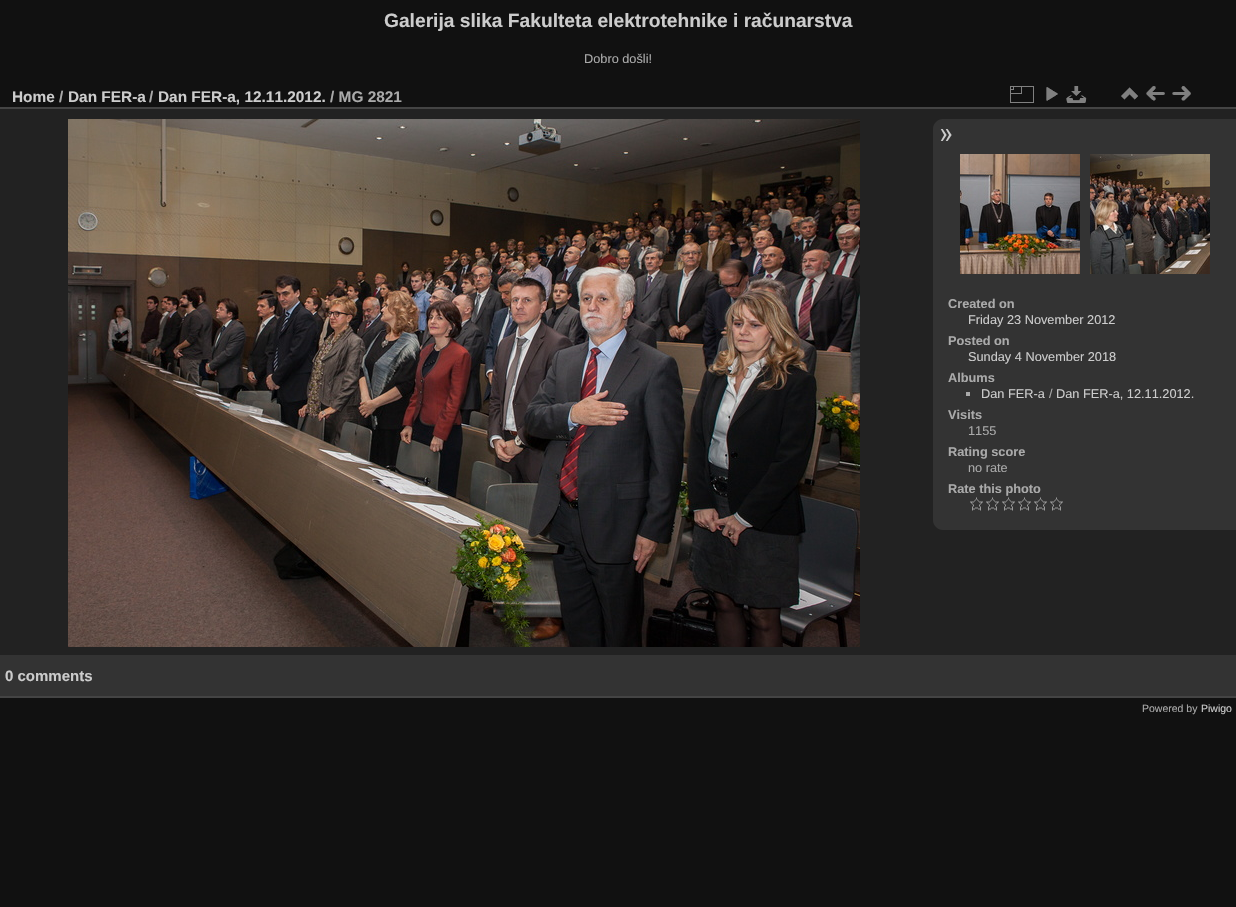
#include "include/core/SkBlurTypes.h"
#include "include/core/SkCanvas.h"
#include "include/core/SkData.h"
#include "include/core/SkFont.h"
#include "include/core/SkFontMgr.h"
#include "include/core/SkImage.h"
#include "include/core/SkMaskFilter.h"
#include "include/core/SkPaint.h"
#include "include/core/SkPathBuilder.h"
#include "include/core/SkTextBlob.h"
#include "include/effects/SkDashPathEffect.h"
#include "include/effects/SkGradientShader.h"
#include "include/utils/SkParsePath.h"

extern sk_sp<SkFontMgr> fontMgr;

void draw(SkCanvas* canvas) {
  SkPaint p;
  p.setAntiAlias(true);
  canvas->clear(SkColorSetRGB(17, 17, 17));
  p.setColor(SkColorSetRGB(34, 34, 34));
  canvas->drawRect(SkRect::MakeLTRB(0, 109, 1236, 655), p);
  p.setColor(SkColorSetRGB(68, 68, 68));
  canvas->drawRect(SkRect::MakeLTRB(0, 696, 1236, 698), p);
  canvas->drawRect(SkRect::MakeLTRB(0, 107, 1236, 109), p);
  canvas->drawImageRect(SkImages::DeferredFromEncodedData(SkData::MakeFromFileName("images/1.png")), SkRect::MakeLTRB(1010, 86, 1034, 103), SkSamplingOptions());
  canvas->drawImageRect(SkImages::DeferredFromEncodedData(SkData::MakeFromFileName("images/2.png")), SkRect::MakeLTRB(1046, 87, 1058, 101), SkSamplingOptions());
  canvas->drawImageRect(SkImages::DeferredFromEncodedData(SkData::MakeFromFileName("images/3.png")), SkRect::MakeLTRB(1066, 86, 1087, 103), SkSamplingOptions());
  canvas->drawImageRect(SkImages::DeferredFromEncodedData(SkData::MakeFromFileName("images/4.png")), SkRect::MakeLTRB(1121, 87, 1138, 100), SkSamplingOptions());
  canvas->drawImageRect(SkImages::DeferredFromEncodedData(SkData::MakeFromFileName("images/5.png")), SkRect::MakeLTRB(1146, 86, 1165, 101), SkSamplingOptions());
  canvas->drawImageRect(SkImages::DeferredFromEncodedData(SkData::MakeFromFileName("images/6.png")), SkRect::MakeLTRB(1172, 86, 1191, 101), SkSamplingOptions());
  canvas->drawImageRect(SkImages::DeferredFromEncodedData(SkData::MakeFromFileName("images/7.png")), SkRect::MakeLTRB(68, 119, 860, 647), SkSamplingOptions());
  p.setColor(SkColorSetRGB(51, 51, 51));
  canvas->drawPath(SkPathBuilder().moveTo(943, 119).lineTo(1236, 119).lineTo(1236, 530).lineTo(943, 530).cubicTo(937.5f, 530, 933, 525.5f, 933, 520).lineTo(933, 129).cubicTo(933, 123.5f, 937.5f, 119, 943, 119).close().detach(), p);
  canvas->drawImageRect(SkImages::DeferredFromEncodedData(SkData::MakeFromFileName("images/8.png")), SkRect::MakeLTRB(940, 129, 952, 141), SkSamplingOptions());
  canvas->drawImageRect(SkImages::DeferredFromEncodedData(SkData::MakeFromFileName("images/9.png")), SkRect::MakeLTRB(960, 154, 1080, 274), SkSamplingOptions());
  canvas->drawImageRect(SkImages::DeferredFromEncodedData(SkData::MakeFromFileName("images/10.png")), SkRect::MakeLTRB(1090, 154, 1210, 274), SkSamplingOptions());
  p.setColor(SkColorSetRGB(170, 170, 170));
  canvas->drawRect(SkRect::MakeLTRB(966, 392, 970, 396), p);
  canvas->drawImageRect(SkImages::DeferredFromEncodedData(SkData::MakeFromFileName("images/11.png")), SkRect::MakeLTRB(970, 497, 983, 511), SkSamplingOptions());
  canvas->drawImageRect(SkImages::DeferredFromEncodedData(SkData::MakeFromFileName("images/11.png")), SkRect::MakeLTRB(986, 497, 999, 511), SkSamplingOptions());
  canvas->drawImageRect(SkImages::DeferredFromEncodedData(SkData::MakeFromFileName("images/11.png")), SkRect::MakeLTRB(1002, 497, 1015, 511), SkSamplingOptions());
  canvas->drawImageRect(SkImages::DeferredFromEncodedData(SkData::MakeFromFileName("images/11.png")), SkRect::MakeLTRB(1018, 497, 1031, 511), SkSamplingOptions());
  canvas->drawImageRect(SkImages::DeferredFromEncodedData(SkData::MakeFromFileName("images/11.png")), SkRect::MakeLTRB(1034, 497, 1047, 511), SkSamplingOptions());
  canvas->drawImageRect(SkImages::DeferredFromEncodedData(SkData::MakeFromFileName("images/11.png")), SkRect::MakeLTRB(1050, 497, 1063, 511), SkSamplingOptions());
  p.setColor(SkColorSetRGB(51, 51, 51));
  canvas->drawRect(SkRect::MakeLTRB(0, 655, 1236, 696), p);
  SkFont font1(fontMgr->matchFamilyStyle("Liberation Sans", SkFontStyle::Bold()), 19.2f);
  font1.setSubpixel(true);
  p.setColor(SkColorSetRGB(204, 204, 204));
  canvas->drawString("Galerija slika Fakulteta elektrotehnike i računarstva", 384, 27, font1, p);
  SkFont font2(fontMgr->matchFamilyStyle("Liberation Sans", SkFontStyle::Normal()), 12.75f);
  font2.setSubpixel(true);
  p.setColor(SkColorSetRGB(170, 170, 170));
  canvas->drawString("Dobro došli!", 584, 63, font2, p);
  SkFont font3(fontMgr->matchFamilyStyle("Liberation Sans", SkFontStyle::Bold()), 15.4f);
  font3.setSubpixel(true);
  p.setColor(SkColorSetRGB(204, 204, 204));
  canvas->drawString("Home", 12, 102, font3, p);
  p.setColor(SkColorSetRGB(170, 170, 170));
  canvas->drawString("/", 59, 102, font3, p);
  p.setColor(SkColorSetRGB(204, 204, 204));
  canvas->drawString("Dan FER-a", 68, 102, font3, p);
  p.setColor(SkColorSetRGB(170, 170, 170));
  canvas->drawString("/", 149, 102, font3, p);
  p.setColor(SkColorSetRGB(204, 204, 204));
  canvas->drawString("Dan FER-a, 12.11.2012.", 158, 102, font3, p);
  p.setColor(SkColorSetRGB(170, 170, 170));
  canvas->drawString("/ MG 2821", 330, 102, font3, p);
  SkFont font4(fontMgr->matchFamilyStyle("Liberation Sans", SkFontStyle::Bold()), 12.75f);
  font4.setSubpixel(true);
  canvas->drawString("Created on", 948, 308, font4, p);
  p.setColor(SkColorSetRGB(204, 204, 204));
  canvas->drawString("Friday 23 November 2012", 968, 324, font2, p);
  p.setColor(SkColorSetRGB(170, 170, 170));
  canvas->drawString("Posted on", 948, 345, font4, p);
  p.setColor(SkColorSetRGB(204, 204, 204));
  canvas->drawString("Sunday 4 November 2018", 968, 361, font2, p);
  p.setColor(SkColorSetRGB(170, 170, 170));
  canvas->drawString("Albums", 948, 382, font4, p);
  p.setColor(SkColorSetRGB(204, 204, 204));
  canvas->drawString("Dan FER-a", 981, 398, font2, p);
  p.setColor(SkColorSetRGB(170, 170, 170));
  canvas->drawString("/", 1049, 398, font2, p);
  p.setColor(SkColorSetRGB(204, 204, 204));
  canvas->drawString("Dan FER-a, 12.11.2012.", 1056, 398, font2, p);
  p.setColor(SkColorSetRGB(170, 170, 170));
  canvas->drawString("Visits", 948, 419, font4, p);
  canvas->drawString("1155", 968, 435, font2, p);
  canvas->drawString("Rating score", 948, 456, font4, p);
  canvas->drawString("no rate", 968, 472, font2, p);
  canvas->drawString("Rate this photo", 948, 493, font4, p);
  SkFont font5(fontMgr->matchFamilyStyle("Liberation Sans", SkFontStyle::Bold()), 15);
  font5.setSubpixel(true);
  p.setColor(SkColorSetRGB(204, 204, 204));
  canvas->drawString("0 comments", 5, 681, font5, p);
  SkFont font6(fontMgr->matchFamilyStyle("Liberation Sans", SkFontStyle::Normal()), 10.5f);
  font6.setSubpixel(true);
  p.setColor(SkColorSetRGB(170, 170, 170));
  canvas->drawString("Powered by", 1142, 712, font6, p);
  p.setColor(SkColorSetRGB(204, 204, 204));
  canvas->drawString("Piwigo", 1201, 712, font6, p);
}
